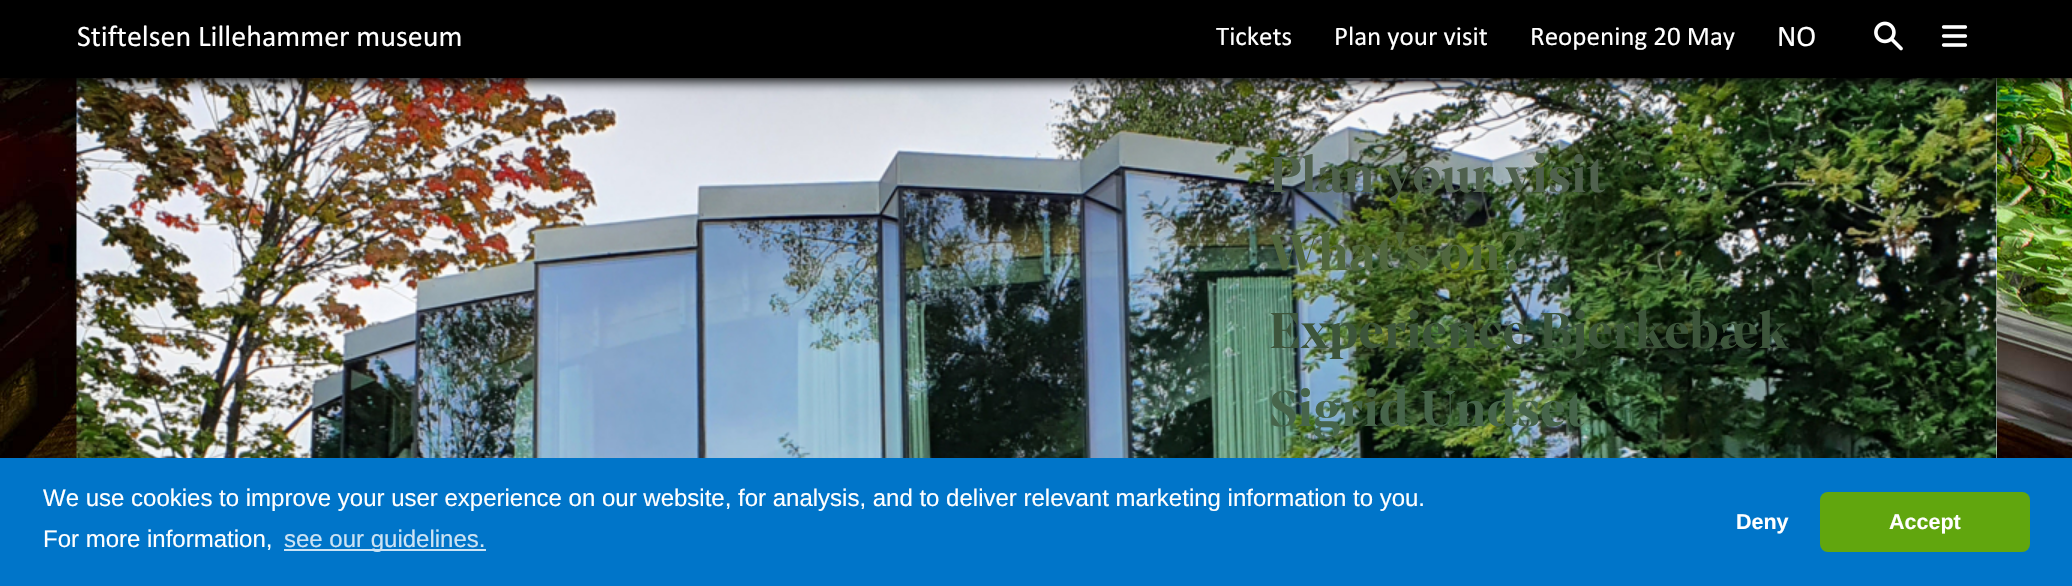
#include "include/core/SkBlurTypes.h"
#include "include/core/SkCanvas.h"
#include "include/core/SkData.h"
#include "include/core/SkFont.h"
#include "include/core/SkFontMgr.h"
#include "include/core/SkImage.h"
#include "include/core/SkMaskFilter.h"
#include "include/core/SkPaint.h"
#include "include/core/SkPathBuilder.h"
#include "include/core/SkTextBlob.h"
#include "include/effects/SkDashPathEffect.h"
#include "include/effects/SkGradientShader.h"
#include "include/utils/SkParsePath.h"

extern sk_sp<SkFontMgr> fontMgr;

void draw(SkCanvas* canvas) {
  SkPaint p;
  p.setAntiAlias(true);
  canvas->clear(SK_ColorWHITE);
  canvas->drawImageRect(SkImages::DeferredFromEncodedData(SkData::MakeFromFileName("images/3.png")), SkRect::MakeLTRB(0, 78, 2072, 458), SkSamplingOptions());
  p.setColor(SK_ColorWHITE);
  canvas->drawRect(SkRect::MakeLTRB(1996, 78, 1997, 458), p);
  canvas->drawImageRect(SkImages::DeferredFromEncodedData(SkData::MakeFromFileName("images/4.png")), SkRect::MakeLTRB(76, 78, 1997, 458), SkSamplingOptions());
  p.setColor(SK_ColorBLACK);
  p.setMaskFilter(SkMaskFilter::MakeBlur(kNormal_SkBlurStyle, 6));
  canvas->drawRect(SkRect::MakeLTRB(-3, -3, 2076, 81), p);
  p.setMaskFilter(nullptr);
  canvas->drawRect(SkRect::MakeLTRB(0, 0, 2072, 78), p);
  canvas->drawImageRect(SkImages::DeferredFromEncodedData(SkData::MakeFromFileName("images/1.png")), SkRect::MakeLTRB(1874, 21, 1903, 51), SkSamplingOptions());
  canvas->drawImageRect(SkImages::DeferredFromEncodedData(SkData::MakeFromFileName("images/2.png")), SkRect::MakeLTRB(1941, 25, 1968, 47), SkSamplingOptions());
  p.setColor(SkColorSetRGB(0, 117, 201));
  canvas->drawRect(SkRect::MakeLTRB(0, 458, 2072, 586), p);
  p.setColor(SkColorSetRGB(204, 227, 244));
  canvas->drawRect(SkRect::MakeLTRB(284, 549, 486, 551), p);
  p.setColor(SkColorSetRGB(97, 166, 14));
  canvas->drawRoundRect(SkRect::MakeLTRB(1820, 492, 2030, 552), 8, 8, p);
  SkFont font1(fontMgr->matchFamilyStyle("Calibri", SkFontStyle::Normal()), 30);
  font1.setSubpixel(true);
  p.setColor(SK_ColorWHITE);
  canvas->drawString("Stiftelsen Lillehammer museum", 77, 46, font1, p);
  SkFont font2(fontMgr->matchFamilyStyle("Calibri", SkFontStyle::Normal()), 27);
  font2.setSubpixel(true);
  canvas->drawString("Tickets", 1216, 45, font2, p);
  canvas->drawString("Plan your visit", 1334, 45, font2, p);
  canvas->drawString("Reopening 20 May", 1530, 45, font2, p);
  canvas->drawString("NO", 1777, 46, font1, p);
  SkFont font3(fontMgr->matchFamilyStyle("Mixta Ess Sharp", SkFontStyle::Bold()), 54);
  font3.setSubpixel(true);
  p.setColor(SkColorSetRGB(80, 97, 78));
  canvas->drawString("Plan your visit", 1269, 192, font3, p);
  p.setColor(SkColorSetRGB(81, 103, 62));
  canvas->drawString("What's on?", 1269, 270, font3, p);
  p.setColor(SkColorSetRGB(61, 85, 59));
  canvas->drawString("Experience Bjerkebæk", 1269, 348, font3, p);
  p.setColor(SkColorSetRGB(71, 101, 75));
  canvas->drawString("Sigrid Undset", 1269, 426, font3, p);
  p.setColor(SkColorSetRGB(59, 96, 65));
  canvas->drawString("+", 1614, 426, font3, p);
  SkFont font4(fontMgr->matchFamilyStyle("Liberation Sans", SkFontStyle::Normal()), 24);
  font4.setSubpixel(true);
  p.setColor(SK_ColorWHITE);
  canvas->drawString("We use cookies to improve your user experience on our website, for analysis, and to deliver relevant marketing information to you.", 43, 506, font4, p);
  canvas->drawString("For more information,", 43, 547, font4, p);
  p.setColor(SkColorSetRGB(204, 227, 244));
  canvas->drawString("see our guidelines.", 284, 547, font4, p);
  SkFont font5(fontMgr->matchFamilyStyle("Liberation Sans", SkFontStyle::Bold()), 21.5f);
  font5.setSubpixel(true);
  p.setColor(SK_ColorWHITE);
  canvas->drawString("Deny", 1736, 529, font5, p);
  canvas->drawString("Accept", 1889, 529, font5, p);
}
